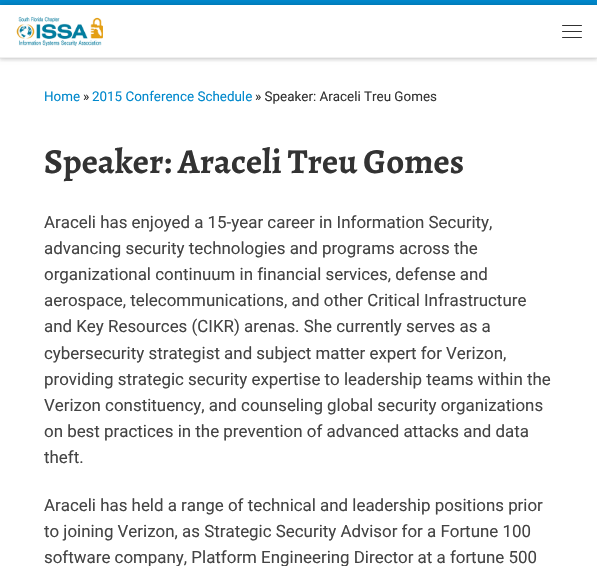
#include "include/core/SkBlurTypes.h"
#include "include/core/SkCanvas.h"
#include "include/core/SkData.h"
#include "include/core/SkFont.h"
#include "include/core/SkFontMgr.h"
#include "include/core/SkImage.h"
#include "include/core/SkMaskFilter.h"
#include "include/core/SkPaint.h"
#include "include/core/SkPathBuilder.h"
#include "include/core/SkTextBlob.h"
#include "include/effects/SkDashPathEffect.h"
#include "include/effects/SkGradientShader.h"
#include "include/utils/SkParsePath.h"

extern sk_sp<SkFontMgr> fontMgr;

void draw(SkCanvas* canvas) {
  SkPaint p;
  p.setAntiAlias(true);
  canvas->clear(SK_ColorWHITE);
  canvas->save();
  canvas->clipRect(SkRect::MakeLTRB(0, 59, 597, 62));
  p.setColor(SkColorSetARGB(20, 102, 102, 102));
  p.setMaskFilter(SkMaskFilter::MakeBlur(kNormal_SkBlurStyle, 1));
  canvas->drawRect(SkRect::MakeLTRB(0, 2, 597, 61), p);
  p.setMaskFilter(nullptr);
  canvas->restore();
  p.setColor(SkColorSetRGB(0, 136, 204));
  canvas->drawRect(SkRect::MakeLTRB(0, 0, 597, 5), p);
  p.setColor(SkColorSetRGB(239, 239, 239));
  canvas->drawRect(SkRect::MakeLTRB(0, 58, 597, 59), p);
  canvas->save();
  canvas->clipPath(SkPathBuilder(SkPathFillType::kEvenOdd).moveTo(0, 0).lineTo(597, 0).lineTo(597, 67).lineTo(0, 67).close().moveTo(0, 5).lineTo(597, 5).lineTo(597, 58).lineTo(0, 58).close().detach(), true);
  p.setColor(SkColorSetARGB(51, 0, 0, 0));
  p.setMaskFilter(SkMaskFilter::MakeBlur(kNormal_SkBlurStyle, 2.5f));
  canvas->drawRect(SkRect::MakeLTRB(0, 5, 597, 58), p);
  p.setMaskFilter(nullptr);
  canvas->restore();
  canvas->drawImageRect(SkImages::DeferredFromEncodedData(SkData::MakeFromFileName("images/1.png")), SkRect::MakeLTRB(16, 16, 103, 46), SkSamplingOptions());
  p.setColor(SkColorSetRGB(49, 49, 49));
  canvas->drawRoundRect(SkRect::MakeLTRB(562, 25, 582, 26), 0.5f, 0.5f, p);
  canvas->drawRoundRect(SkRect::MakeLTRB(562, 31, 582, 32), 0.5f, 0.5f, p);
  canvas->drawRoundRect(SkRect::MakeLTRB(562, 37, 582, 38), 0.5f, 0.5f, p);
  p.setColor(SkColorSetRGB(240, 240, 240));
  canvas->drawRect(SkRect::MakeLTRB(0, 57, 597, 58), p);
  SkFont font1(fontMgr->matchFamilyStyle("Roboto", SkFontStyle::Normal()), 13.4f);
  font1.setSubpixel(true);
  p.setColor(SkColorSetRGB(0, 136, 204));
  canvas->drawString("Home", 44, 101, font1, p);
  p.setColor(SkColorSetRGB(51, 51, 51));
  canvas->drawString("»", 83, 101, font1, p);
  p.setColor(SkColorSetRGB(0, 136, 204));
  canvas->drawString("2015 Conference Schedule", 92, 101, font1, p);
  p.setColor(SkColorSetRGB(51, 51, 51));
  canvas->drawString("» Speaker: Araceli Treu Gomes", 255, 101, font1, p);
  SkFont font2(fontMgr->matchFamilyStyle("Alegreya", SkFontStyle::Bold()), 35);
  font2.setSubpixel(true);
  canvas->drawString("Speaker: Araceli Treu Gomes", 44, 173, font2, p);
  SkFont font3(fontMgr->matchFamilyStyle("Roboto", SkFontStyle::Normal()), 16.9f);
  font3.setSubpixel(true);
  p.setColor(SkColorSetRGB(68, 68, 68));
  canvas->drawString("Araceli has enjoyed a 15-year career in Information Security,", 44, 228, font3, p);
  canvas->drawString("advancing security technologies and programs across the", 44, 254, font3, p);
  canvas->drawString("organizational continuum in financial services, defense and", 44, 280, font3, p);
  canvas->drawString("aerospace, telecommunications, and other Critical Infrastructure", 44, 306, font3, p);
  canvas->drawString("and Key Resources (CIKR) arenas. She currently serves as a", 44, 332, font3, p);
  canvas->drawString("cybersecurity strategist and subject matter expert for Verizon,", 44, 359, font3, p);
  canvas->drawString("providing strategic security expertise to leadership teams within the", 44, 385, font3, p);
  canvas->drawString("Verizon constituency, and counseling global security organizations", 44, 411, font3, p);
  canvas->drawString("on best practices in the prevention of advanced attacks and data", 44, 437, font3, p);
  canvas->drawString("theft.", 44, 463, font3, p);
  canvas->drawString("Araceli has held a range of technical and leadership positions prior", 44, 511, font3, p);
  canvas->drawString("to joining Verizon, as Strategic Security Advisor for a Fortune 100", 44, 537, font3, p);
  canvas->drawString("software company, Platform Engineering Director at a fortune 500", 44, 563, font3, p);
}
